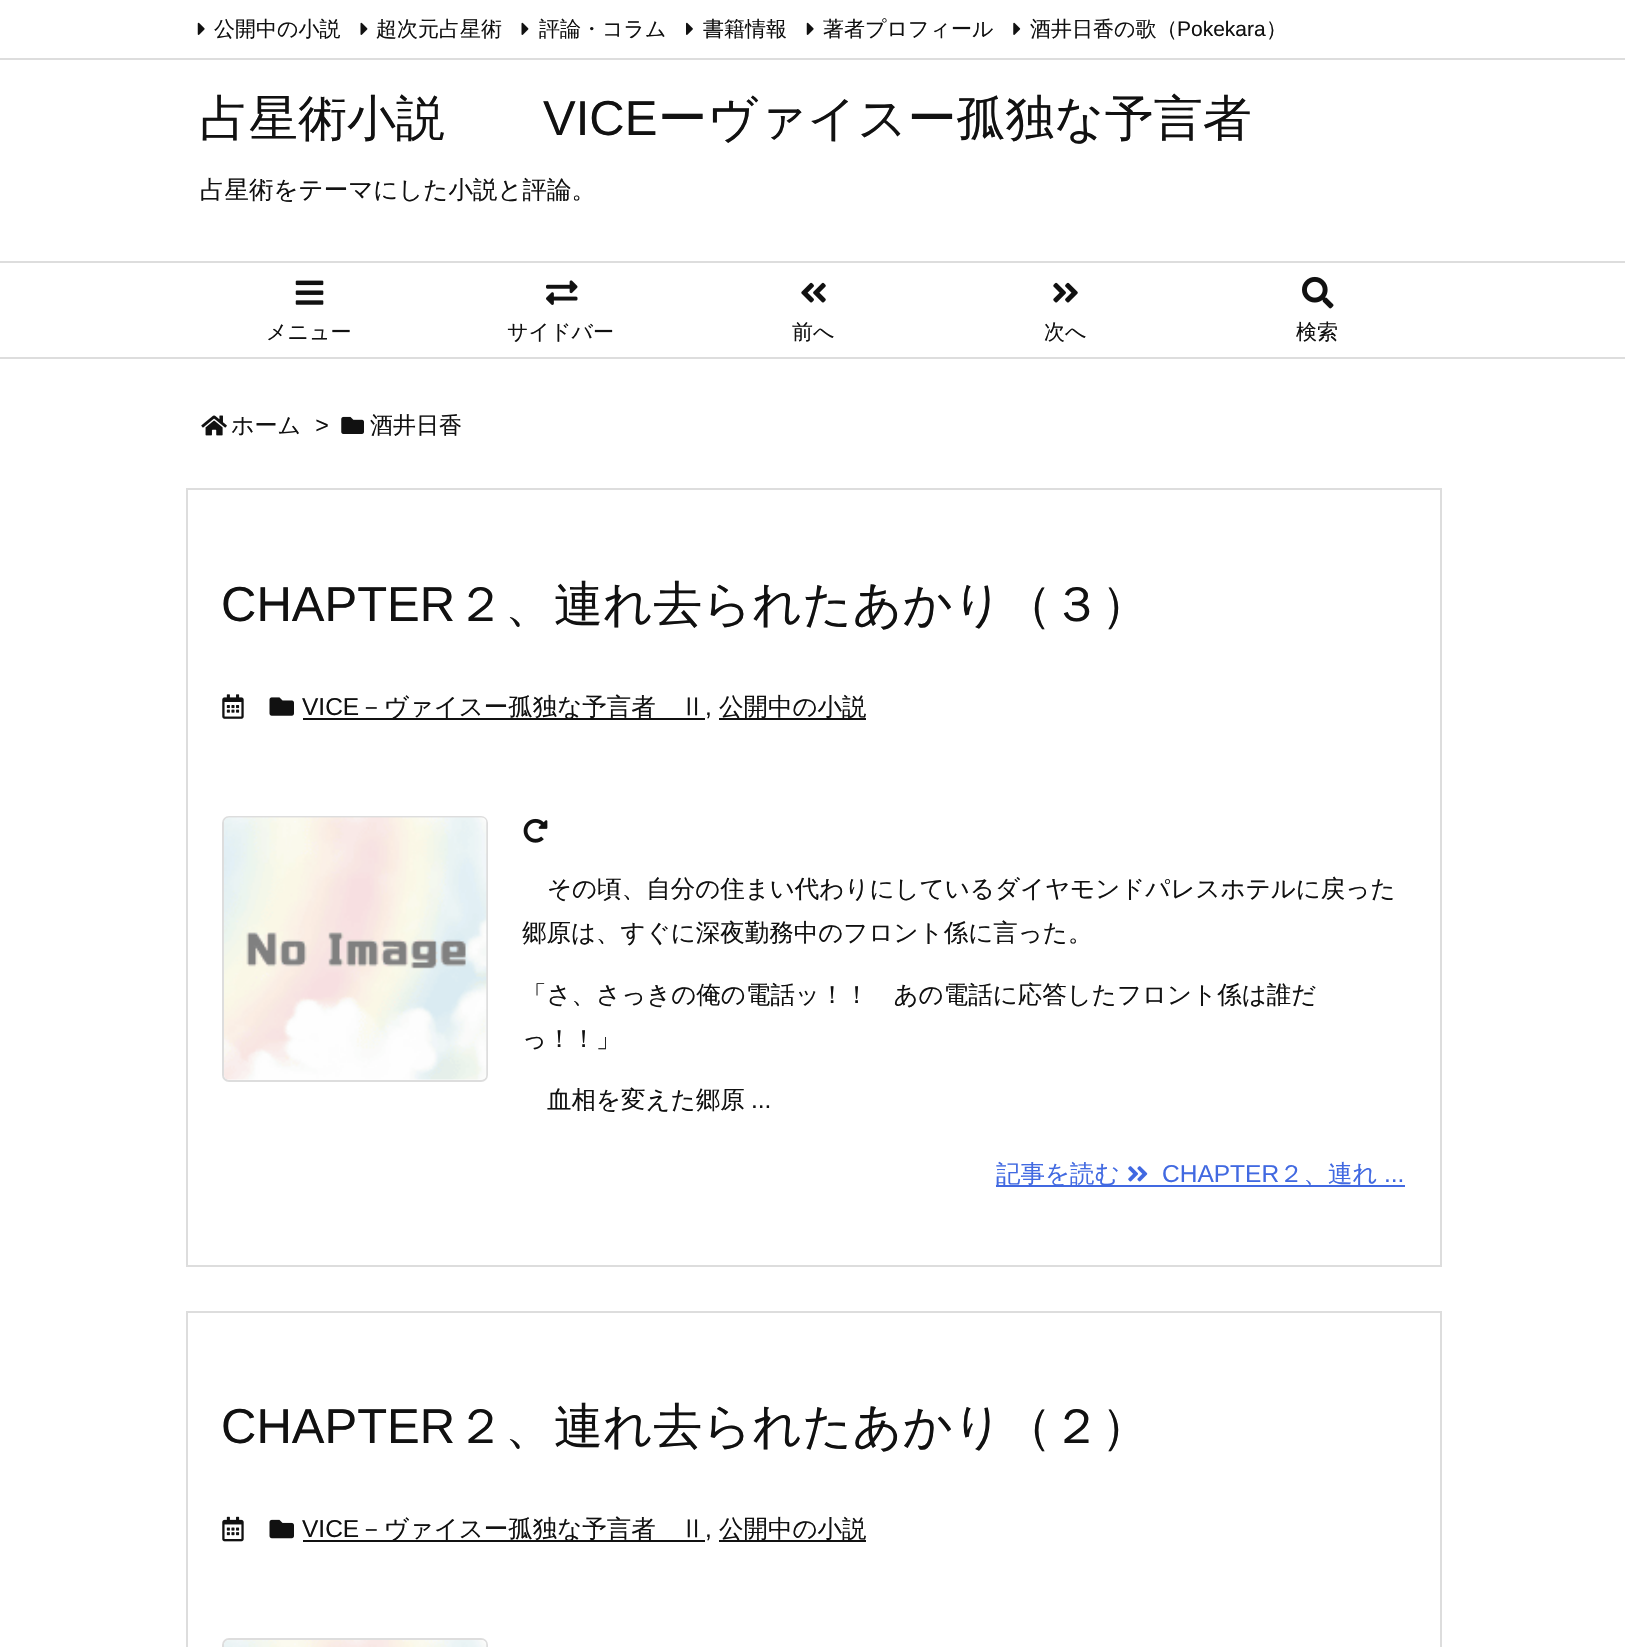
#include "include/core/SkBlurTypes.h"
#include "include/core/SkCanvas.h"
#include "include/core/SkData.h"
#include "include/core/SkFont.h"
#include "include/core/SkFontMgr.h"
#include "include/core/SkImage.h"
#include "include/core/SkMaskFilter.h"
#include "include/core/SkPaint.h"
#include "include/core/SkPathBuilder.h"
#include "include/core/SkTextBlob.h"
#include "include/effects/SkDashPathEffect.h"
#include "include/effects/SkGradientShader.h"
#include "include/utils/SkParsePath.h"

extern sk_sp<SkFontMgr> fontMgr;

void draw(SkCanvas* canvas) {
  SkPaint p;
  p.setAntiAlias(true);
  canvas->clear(SK_ColorWHITE);
  p.setColor(SkColorSetRGB(221, 221, 221));
  canvas->drawRect(SkRect::MakeLTRB(0, 58, 1625, 60), p);
  canvas->drawImageRect(SkImages::DeferredFromEncodedData(SkData::MakeFromFileName("images/1.png")), SkRect::MakeLTRB(197, 22, 205, 35), SkSamplingOptions());
  canvas->drawImageRect(SkImages::DeferredFromEncodedData(SkData::MakeFromFileName("images/2.png")), SkRect::MakeLTRB(360, 22, 368, 35), SkSamplingOptions());
  canvas->drawImageRect(SkImages::DeferredFromEncodedData(SkData::MakeFromFileName("images/2.png")), SkRect::MakeLTRB(521, 22, 529, 35), SkSamplingOptions());
  canvas->drawImageRect(SkImages::DeferredFromEncodedData(SkData::MakeFromFileName("images/3.png")), SkRect::MakeLTRB(686, 22, 693, 35), SkSamplingOptions());
  canvas->drawImageRect(SkImages::DeferredFromEncodedData(SkData::MakeFromFileName("images/1.png")), SkRect::MakeLTRB(806, 22, 814, 35), SkSamplingOptions());
  canvas->drawImageRect(SkImages::DeferredFromEncodedData(SkData::MakeFromFileName("images/4.png")), SkRect::MakeLTRB(1013, 22, 1021, 35), SkSamplingOptions());
  canvas->drawRect(SkRect::MakeLTRB(0, 261, 1625, 263), p);
  canvas->drawRect(SkRect::MakeLTRB(0, 357, 1625, 359), p);
  canvas->drawImageRect(SkImages::DeferredFromEncodedData(SkData::MakeFromFileName("images/5.png")), SkRect::MakeLTRB(295, 280, 324, 305), SkSamplingOptions());
  canvas->drawImageRect(SkImages::DeferredFromEncodedData(SkData::MakeFromFileName("images/6.png")), SkRect::MakeLTRB(546, 280, 578, 305), SkSamplingOptions());
  canvas->drawImageRect(SkImages::DeferredFromEncodedData(SkData::MakeFromFileName("images/7.png")), SkRect::MakeLTRB(801, 282, 826, 303), SkSamplingOptions());
  canvas->drawImageRect(SkImages::DeferredFromEncodedData(SkData::MakeFromFileName("images/8.png")), SkRect::MakeLTRB(1053, 282, 1078, 303), SkSamplingOptions());
  canvas->drawImageRect(SkImages::DeferredFromEncodedData(SkData::MakeFromFileName("images/9.png")), SkRect::MakeLTRB(1302, 276, 1334, 309), SkSamplingOptions());
  canvas->drawImageRect(SkImages::DeferredFromEncodedData(SkData::MakeFromFileName("images/10.png")), SkRect::MakeLTRB(201, 415, 227, 436), SkSamplingOptions());
  canvas->drawImageRect(SkImages::DeferredFromEncodedData(SkData::MakeFromFileName("images/11.png")), SkRect::MakeLTRB(341, 416, 364, 434), SkSamplingOptions());
  p.setStyle(SkPaint::kStroke_Style);
  p.setStrokeWidth(2);
  canvas->drawRect(SkRect::MakeLTRB(187, 489, 1441, 1266), p);
  canvas->drawImageRect(SkImages::DeferredFromEncodedData(SkData::MakeFromFileName("images/12.png")), SkRect::MakeLTRB(222, 694, 244, 719), SkSamplingOptions());
  canvas->drawImageRect(SkImages::DeferredFromEncodedData(SkData::MakeFromFileName("images/13.png")), SkRect::MakeLTRB(269, 697, 294, 716), SkSamplingOptions());
  p.setStyle(SkPaint::kFill_Style);
  p.setColor(SkColorSetRGB(17, 17, 17));
  canvas->drawRect(SkRect::MakeLTRB(303, 718, 705, 720), p);
  canvas->drawRect(SkRect::MakeLTRB(719, 718, 866, 720), p);
  p.setStyle(SkPaint::kStroke_Style);
  p.setColor(SkColorSetRGB(221, 221, 221));
  canvas->drawRoundRect(SkRect::MakeLTRB(223, 817, 487, 1081), 6, 6, p);
  canvas->drawImageRect(SkImages::DeferredFromEncodedData(SkData::MakeFromFileName("images/14.png")), SkRect::MakeLTRB(224, 817, 487, 1080), SkSamplingOptions());
  canvas->drawImageRect(SkImages::DeferredFromEncodedData(SkData::MakeFromFileName("images/15.png")), SkRect::MakeLTRB(523, 818, 548, 843), SkSamplingOptions());
  p.setStyle(SkPaint::kFill_Style);
  p.setColor(SkColorSetRGB(65, 105, 225));
  canvas->drawRect(SkRect::MakeLTRB(996, 1185, 1405, 1187), p);
  canvas->drawImageRect(SkImages::DeferredFromEncodedData(SkData::MakeFromFileName("images/16.png")), SkRect::MakeLTRB(1128, 1166, 1148, 1182), SkSamplingOptions());
  p.setStyle(SkPaint::kStroke_Style);
  p.setColor(SkColorSetRGB(221, 221, 221));
  canvas->drawRect(SkRect::MakeLTRB(187, 1312, 1441, 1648), p);
  canvas->drawImageRect(SkImages::DeferredFromEncodedData(SkData::MakeFromFileName("images/17.png")), SkRect::MakeLTRB(222, 1516, 244, 1542), SkSamplingOptions());
  canvas->drawImageRect(SkImages::DeferredFromEncodedData(SkData::MakeFromFileName("images/18.png")), SkRect::MakeLTRB(269, 1519, 294, 1539), SkSamplingOptions());
  p.setStyle(SkPaint::kFill_Style);
  p.setColor(SkColorSetRGB(17, 17, 17));
  canvas->drawRect(SkRect::MakeLTRB(303, 1540, 705, 1542), p);
  canvas->drawRect(SkRect::MakeLTRB(719, 1540, 866, 1542), p);
  p.setStyle(SkPaint::kStroke_Style);
  p.setColor(SkColorSetRGB(221, 221, 221));
  canvas->drawRoundRect(SkRect::MakeLTRB(223, 1639, 487, 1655), 6, 6, p);
  canvas->drawImageRect(SkImages::DeferredFromEncodedData(SkData::MakeFromFileName("images/19.png")), SkRect::MakeLTRB(224, 1640, 487, 1647), SkSamplingOptions());
  SkFont font1(fontMgr->matchFamilyStyle("WenQuanYi Zen Hei", SkFontStyle(500, SkFontStyle::kNormal_Width, SkFontStyle::kUpright_Slant)), 21);
  font1.setSubpixel(true);
  p.setStyle(SkPaint::kFill_Style);
  p.setColor(SkColorSetRGB(17, 17, 17));
  canvas->drawString("公開中の小説", 214, 36, font1, p);
  canvas->drawString("超次元占星術", 376, 36, font1, p);
  canvas->drawString("評論・コラム", 539, 36, font1, p);
  canvas->drawString("書籍情報", 703, 36, font1, p);
  canvas->drawString("著者プロフィール", 823, 36, font1, p);
  canvas->drawString("酒井日香の歌（", 1030, 36, font1, p);
  SkFont font2(fontMgr->matchFamilyStyle("Liberation Sans", SkFontStyle::Normal()), 21);
  font2.setSubpixel(true);
  canvas->drawString("Pokekara", 1177, 36, font2, p);
  canvas->drawString("）", 1266, 36, font1, p);
  canvas->drawString("メニュー", 266, 339, font1, p);
  canvas->drawString("サイドバー", 507, 339, font1, p);
  canvas->drawString("前へ", 792, 339, font1, p);
  canvas->drawString("次へ", 1044, 339, font1, p);
  canvas->drawString("検索", 1296, 339, font1, p);
  SkFont font3(fontMgr->matchFamilyStyle("WenQuanYi Zen Hei", SkFontStyle(500, SkFontStyle::kNormal_Width, SkFontStyle::kUpright_Slant)), 49);
  font3.setSubpixel(true);
  canvas->drawString("占星術小説", 200, 135, font3, p);
  SkFont font4(fontMgr->matchFamilyStyle("Liberation Sans", SkFontStyle::Normal()), 49);
  font4.setSubpixel(true);
  canvas->drawString("VICE", 543, 135, font4, p);
  canvas->drawString("ーヴァイスー孤独な予言者", 658, 135, font3, p);
  SkFont font5(fontMgr->matchFamilyStyle("WenQuanYi Zen Hei", SkFontStyle(500, SkFontStyle::kNormal_Width, SkFontStyle::kUpright_Slant)), 24.5f);
  font5.setSubpixel(true);
  canvas->drawString("占星術をテーマにした小説と評論。", 200, 198, font5, p);
  SkFont font6(fontMgr->matchFamilyStyle("WenQuanYi Zen Hei", SkFontStyle(500, SkFontStyle::kNormal_Width, SkFontStyle::kUpright_Slant)), 23);
  font6.setSubpixel(true);
  canvas->drawString("ホーム", 231, 433, font6, p);
  SkFont font7(fontMgr->matchFamilyStyle("Liberation Sans", SkFontStyle::Italic()), 23);
  font7.setSubpixel(true);
  canvas->drawString(">", 315, 433, font7, p);
  canvas->drawString("酒井日香", 370, 433, font6, p);
  canvas->drawString("CHAPTER", 221, 621, font4, p);
  canvas->drawString("２、連れ去られたあかり（３）", 456, 621, font3, p);
  SkFont font8(fontMgr->matchFamilyStyle("Liberation Sans", SkFontStyle::Normal()), 24.5f);
  font8.setSubpixel(true);
  canvas->drawString("VICE", 302, 715, font8, p);
  canvas->drawString("－ヴァイスー孤独な予言者　Ⅱ", 359, 715, font5, p);
  canvas->drawString(",", 705, 715, font8, p);
  canvas->drawString("公開中の小説", 719, 715, font5, p);
  canvas->drawString("その頃、自分の住まい代わりにしているダイヤモンドパレスホテルに戻った", 547, 897, font5, p);
  canvas->drawString("郷原は、すぐに深夜勤務中のフロント係に言った。", 522, 941, font5, p);
  canvas->drawString("「さ、さっきの俺の電話ッ！！　あの電話に応答したフロント係は誰だ", 522, 1003, font5, p);
  canvas->drawString("っ！！」", 522, 1047, font5, p);
  canvas->drawString("血相を変えた郷原", 547, 1108, font5, p);
  canvas->drawString("...", 751, 1108, font8, p);
  p.setColor(SkColorSetRGB(65, 105, 225));
  canvas->drawString("記事を読む", 996, 1182, font5, p);
  canvas->drawString("CHAPTER", 1162, 1182, font8, p);
  canvas->drawString("２、連れ", 1279, 1182, font5, p);
  canvas->drawString("...", 1384, 1182, font8, p);
  p.setColor(SkColorSetRGB(17, 17, 17));
  canvas->drawString("CHAPTER", 221, 1443, font4, p);
  canvas->drawString("２、連れ去られたあかり（２）", 456, 1443, font3, p);
  canvas->drawString("VICE", 302, 1537, font8, p);
  canvas->drawString("－ヴァイスー孤独な予言者　Ⅱ", 359, 1537, font5, p);
  canvas->drawString(",", 705, 1537, font8, p);
  canvas->drawString("公開中の小説", 719, 1537, font5, p);
}
